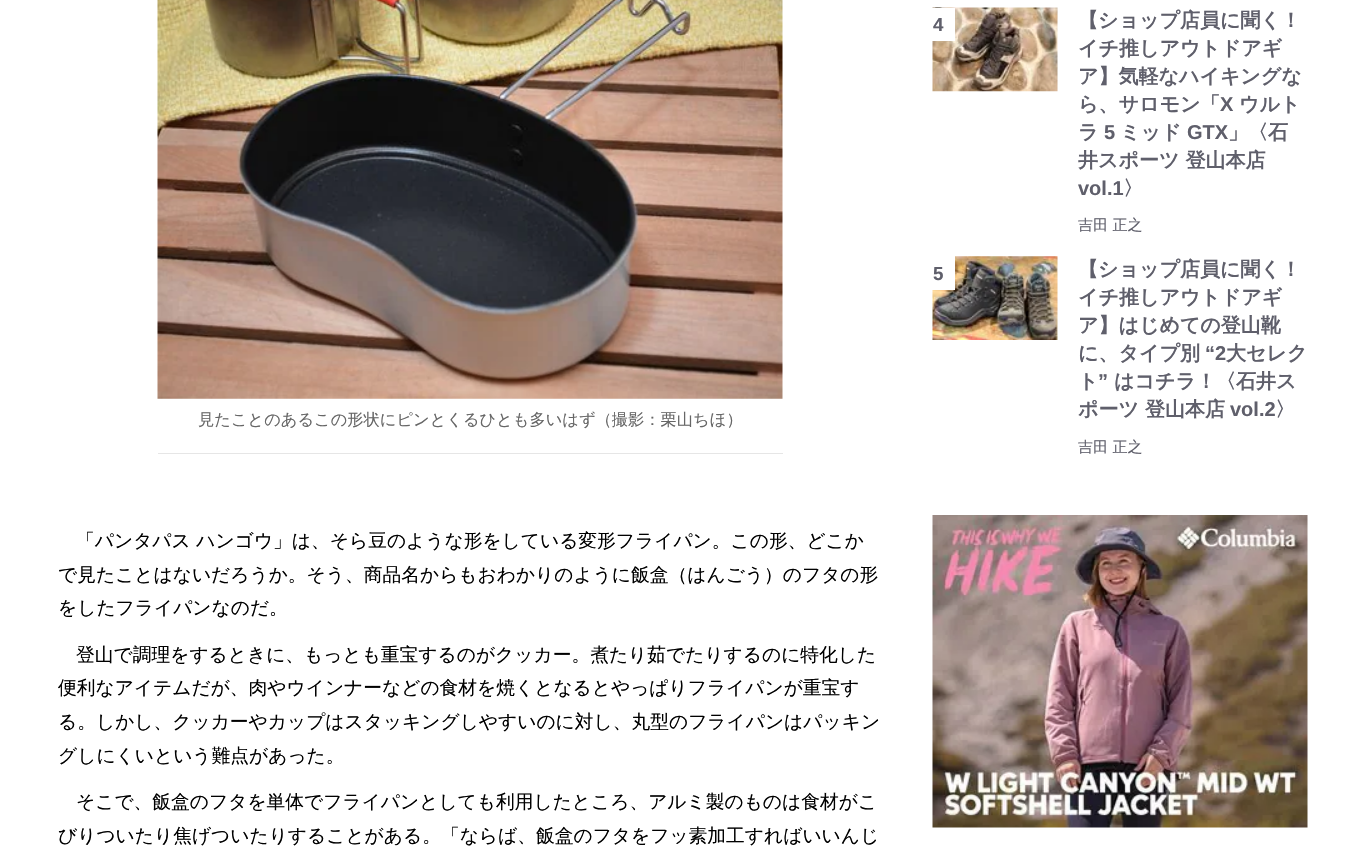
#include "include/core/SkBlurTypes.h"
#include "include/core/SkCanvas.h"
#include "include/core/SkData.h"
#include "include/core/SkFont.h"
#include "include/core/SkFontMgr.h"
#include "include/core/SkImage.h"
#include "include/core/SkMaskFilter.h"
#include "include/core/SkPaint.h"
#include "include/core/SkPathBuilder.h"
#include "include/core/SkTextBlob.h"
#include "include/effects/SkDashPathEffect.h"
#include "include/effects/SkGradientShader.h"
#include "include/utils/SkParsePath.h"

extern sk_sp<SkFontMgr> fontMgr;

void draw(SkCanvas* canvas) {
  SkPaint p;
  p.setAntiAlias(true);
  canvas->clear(SK_ColorWHITE);
  canvas->drawImageRect(SkImages::DeferredFromEncodedData(SkData::MakeFromFileName("images/1.png")), SkRect::MakeLTRB(932, 7, 1058, 92), SkSamplingOptions());
  p.setColor(SK_ColorWHITE);
  canvas->drawRect(SkRect::MakeLTRB(932, 8, 955, 41), p);
  canvas->drawImageRect(SkImages::DeferredFromEncodedData(SkData::MakeFromFileName("images/2.png")), SkRect::MakeLTRB(932, 256, 1058, 340), SkSamplingOptions());
  canvas->drawRect(SkRect::MakeLTRB(932, 256, 955, 290), p);
  canvas->drawImageRect(SkImages::DeferredFromEncodedData(SkData::MakeFromFileName("images/3.png")), SkRect::MakeLTRB(932, 515, 1308, 828), SkSamplingOptions());
  p.setColor(SkColorSetRGB(230, 230, 230));
  canvas->drawRect(SkRect::MakeLTRB(158, 453, 783, 454), p);
  canvas->drawImageRect(SkImages::DeferredFromEncodedData(SkData::MakeFromFileName("images/4.png")), SkRect::MakeLTRB(157, 0, 783, 399), SkSamplingOptions());
  SkFont font1(fontMgr->matchFamilyStyle("Liberation Sans", SkFontStyle::Bold()), 18.75f);
  font1.setSubpixel(true);
  p.setColor(SkColorSetRGB(95, 95, 107));
  canvas->drawString("4", 933, 31, font1, p);
  SkFont font2(fontMgr->matchFamilyStyle("WenQuanYi Zen Hei", SkFontStyle::Bold()), 20);
  font2.setSubpixel(true);
  canvas->drawString("【ショップ店員に聞く！", 1078, 27, font2, p);
  canvas->drawString("イチ推しアウトドアギ", 1078, 55, font2, p);
  canvas->drawString("ア】気軽なハイキングな", 1078, 83, font2, p);
  canvas->drawString("ら、サロモン「", 1078, 111, font2, p);
  SkFont font3(fontMgr->matchFamilyStyle("Liberation Sans", SkFontStyle::Bold()), 20);
  font3.setSubpixel(true);
  canvas->drawString("X", 1220, 111, font3, p);
  canvas->drawString("ウルト", 1239, 111, font2, p);
  canvas->drawString("ラ", 1078, 139, font2, p);
  canvas->drawString("5", 1104, 139, font3, p);
  canvas->drawString("ミッド", 1120, 139, font2, p);
  canvas->drawString("GTX", 1187, 139, font3, p);
  canvas->drawString("」〈石", 1228, 139, font2, p);
  canvas->drawString("井スポーツ 登山本店", 1078, 167, font2, p);
  canvas->drawString("vol.1", 1078, 195, font3, p);
  canvas->drawString("〉", 1123, 195, font2, p);
  SkFont font4(fontMgr->matchFamilyStyle("WenQuanYi Zen Hei", SkFontStyle(500, SkFontStyle::kNormal_Width, SkFontStyle::kUpright_Slant)), 15);
  font4.setSubpixel(true);
  canvas->drawString("吉田 正之", 1078, 230, font4, p);
  canvas->drawString("5", 933, 280, font1, p);
  canvas->drawString("【ショップ店員に聞く！", 1078, 276, font2, p);
  canvas->drawString("イチ推しアウトドアギ", 1078, 304, font2, p);
  canvas->drawString("ア】はじめての登山靴", 1078, 332, font2, p);
  canvas->drawString("に、タイプ別", 1078, 360, font2, p);
  canvas->drawString("“2", 1205, 360, font3, p);
  canvas->drawString("大セレク", 1226, 360, font2, p);
  canvas->drawString("ト", 1078, 388, font2, p);
  canvas->drawString("”", 1098, 388, font3, p);
  canvas->drawString("はコチラ！〈石井ス", 1114, 388, font2, p);
  canvas->drawString("ポーツ 登山本店", 1078, 416, font2, p);
  canvas->drawString("vol.2", 1230, 416, font3, p);
  canvas->drawString("〉", 1275, 416, font2, p);
  canvas->drawString("吉田 正之", 1078, 452, font4, p);
  SkFont font5(fontMgr->matchFamilyStyle("WenQuanYi Zen Hei", SkFontStyle(500, SkFontStyle::kNormal_Width, SkFontStyle::kUpright_Slant)), 16.25f);
  font5.setSubpixel(true);
  p.setColor(SkColorSetRGB(102, 102, 102));
  canvas->drawString("見たことのあるこの形状にピンとくるひとも多いはず（撮影：栗山ちほ）", 198, 425, font5, p);
  SkFont font6(fontMgr->matchFamilyStyle("WenQuanYi Zen Hei", SkFontStyle(500, SkFontStyle::kNormal_Width, SkFontStyle::kUpright_Slant)), 18.75f);
  font6.setSubpixel(true);
  p.setColor(SK_ColorBLACK);
  canvas->drawString("「パンタパス ハンゴウ」は、そら豆のような形をしている変形フライパン。この形、どこか", 76, 547, font6, p);
  canvas->drawString("で見たことはないだろうか。そう、商品名からもおわかりのように飯盒（はんごう）のフタの形", 58, 581, font6, p);
  canvas->drawString("をしたフライパンなのだ。", 58, 614, font6, p);
  canvas->drawString("登山で調理をするときに、もっとも重宝するのがクッカー。煮たり茹でたりするのに特化した", 76, 661, font6, p);
  canvas->drawString("便利なアイテムだが、肉やウインナーなどの食材を焼くとなるとやっぱりフライパンが重宝す", 58, 694, font6, p);
  canvas->drawString("る。しかし、クッカーやカップはスタッキングしやすいのに対し、丸型のフライパンはパッキン", 58, 728, font6, p);
  canvas->drawString("グしにくいという難点があった。", 58, 762, font6, p);
  canvas->drawString("そこで、飯盒のフタを単体でフライパンとしても利用したところ、アルミ製のものは食材がこ", 76, 808, font6, p);
  canvas->drawString("びりついたり焦げついたりすることがある。「ならば、飯盒のフタをフッ素加工すればいいんじ", 58, 842, font6, p);
}
